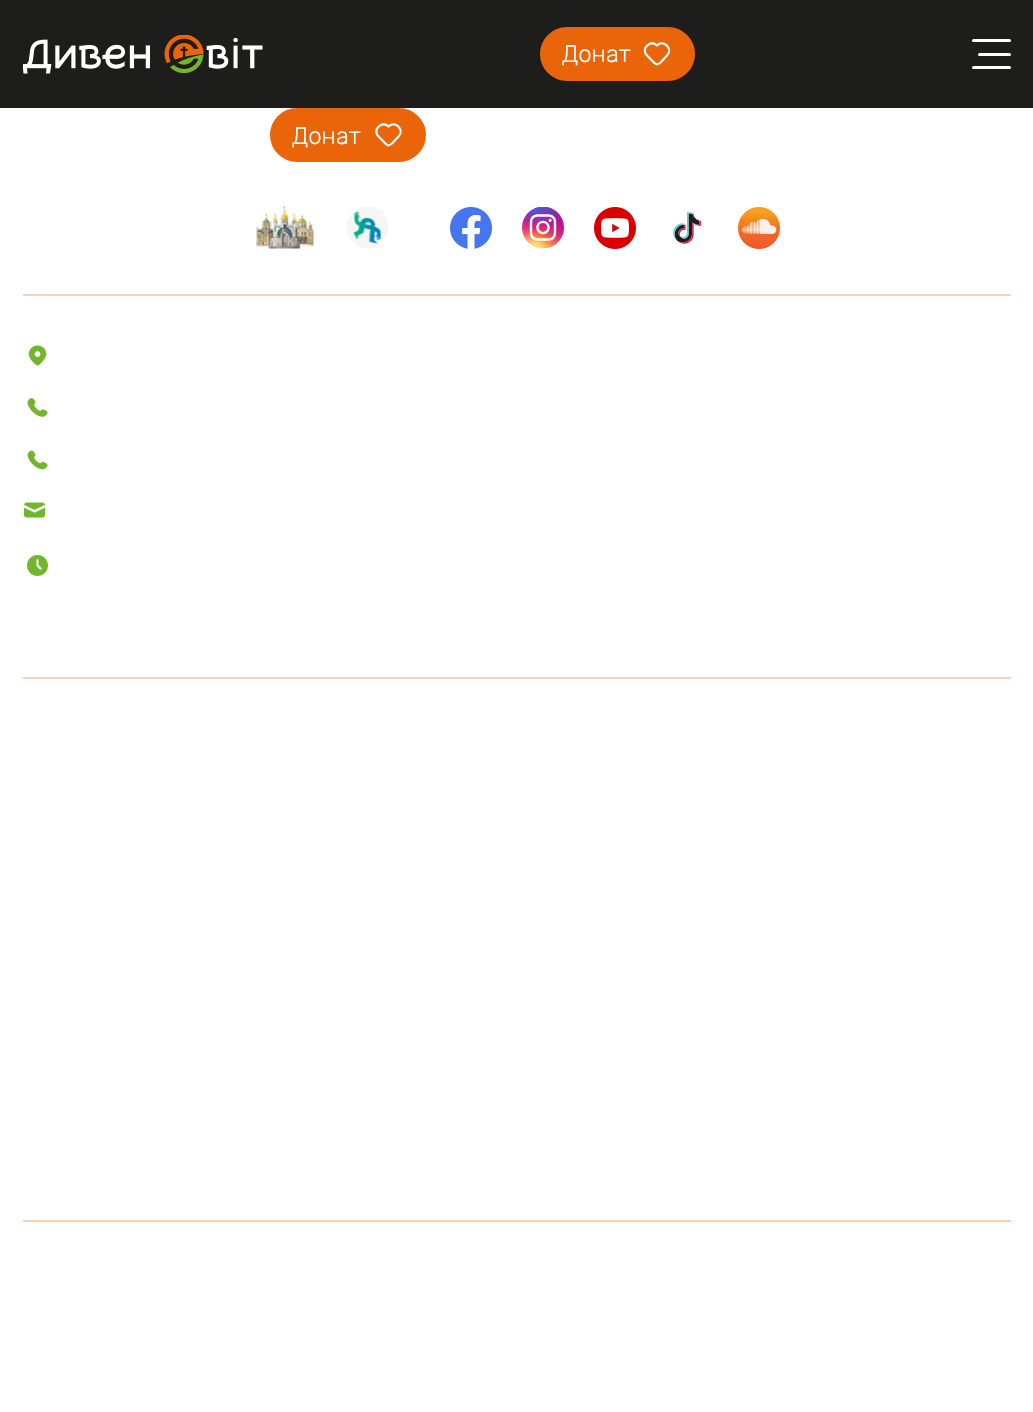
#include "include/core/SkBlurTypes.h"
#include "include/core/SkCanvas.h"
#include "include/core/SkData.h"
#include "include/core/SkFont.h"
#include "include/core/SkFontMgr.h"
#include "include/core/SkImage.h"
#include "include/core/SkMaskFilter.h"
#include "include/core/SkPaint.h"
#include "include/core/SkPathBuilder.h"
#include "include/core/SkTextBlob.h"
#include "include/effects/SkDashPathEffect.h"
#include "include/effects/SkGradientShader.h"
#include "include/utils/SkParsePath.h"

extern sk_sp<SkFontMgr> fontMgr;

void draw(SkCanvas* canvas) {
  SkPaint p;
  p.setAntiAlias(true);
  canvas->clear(SK_ColorWHITE);
  p.setColor(SkColorSetRGB(29, 29, 27));
  canvas->drawRect(SkRect::MakeLTRB(0, 0, 1033, 108), p);
  canvas->drawImageRect(SkImages::DeferredFromEncodedData(SkData::MakeFromFileName("images/1.png")), SkRect::MakeLTRB(23, 35, 263, 74), SkSamplingOptions());
  p.setColor(SkColorSetRGB(234, 101, 10));
  canvas->drawRoundRect(SkRect::MakeLTRB(541, 28, 694, 80), 26, 26, p);
  p.setStyle(SkPaint::kStroke_Style);
  p.setStrokeWidth(2);
  canvas->drawRoundRect(SkRect::MakeLTRB(541, 28, 694, 80), 26, 26, p);
  p.setStrokeWidth(2.2f);
  p.setStrokeCap(SkPaint::kRound_Cap);
  p.setStrokeJoin(SkPaint::kRound_Join);
  p.setColor(SK_ColorWHITE);
  canvas->drawPath(SkPathBuilder().moveTo(667, 55.5f).lineTo(660.5f, 62.5f).cubicTo(656, 66.5f, 655, 63.5f, 651, 59.5f).cubicTo(649.5f, 58, 647, 56, 645.5f, 53.5f).cubicTo(642.5f, 46.5f, 651.5f, 40, 657, 45.5f).cubicTo(663.5f, 39, 673.5f, 49, 667, 55.5f).close().detach(), p);
  p.setStyle(SkPaint::kFill_Style);
  canvas->drawRoundRect(SkRect::MakeLTRB(972, 39, 1011, 42), 1.5f, 1.5f, p);
  canvas->drawRoundRect(SkRect::MakeLTRB(978, 53, 1011, 56), 1.5f, 1.5f, p);
  canvas->drawRoundRect(SkRect::MakeLTRB(972, 66, 1011, 69), 1.5f, 1.5f, p);
  p.setColor(SkColorSetRGB(249, 209, 182));
  canvas->drawRect(SkRect::MakeLTRB(23, 294, 1011, 296), p);
  p.setColor(SkColorSetRGB(234, 101, 10));
  canvas->drawRoundRect(SkRect::MakeLTRB(271, 109, 425, 161), 26, 26, p);
  p.setStyle(SkPaint::kStroke_Style);
  p.setStrokeWidth(2);
  p.setStrokeCap(SkPaint::kButt_Cap);
  p.setStrokeJoin(SkPaint::kMiter_Join);
  canvas->drawRoundRect(SkRect::MakeLTRB(271, 109, 425, 161), 26, 26, p);
  p.setStrokeWidth(2.2f);
  p.setStrokeCap(SkPaint::kRound_Cap);
  p.setStrokeJoin(SkPaint::kRound_Join);
  p.setColor(SK_ColorWHITE);
  canvas->drawPath(SkPathBuilder().moveTo(398.5f, 136.5f).lineTo(392, 143.5f).cubicTo(387.5f, 147.5f, 386.5f, 144.5f, 382.5f, 140.5f).cubicTo(381, 139, 378.5f, 137, 377, 134.5f).cubicTo(374, 127.5f, 383, 121, 388.5f, 126.5f).cubicTo(395, 120, 405, 130, 398.5f, 136.5f).close().detach(), p);
  canvas->drawImageRect(SkImages::DeferredFromEncodedData(SkData::MakeFromFileName("images/2.png")), SkRect::MakeLTRB(256, 206, 314, 249), SkSamplingOptions());
  canvas->drawImageRect(SkImages::DeferredFromEncodedData(SkData::MakeFromFileName("images/3.png")), SkRect::MakeLTRB(347, 207, 388, 248), SkSamplingOptions());
  canvas->drawImageRect(SkImages::DeferredFromEncodedData(SkData::MakeFromFileName("images/4.png")), SkRect::MakeLTRB(450, 207, 492, 249), SkSamplingOptions());
  canvas->drawImageRect(SkImages::DeferredFromEncodedData(SkData::MakeFromFileName("images/5.png")), SkRect::MakeLTRB(522, 207, 564, 249), SkSamplingOptions());
  canvas->drawImageRect(SkImages::DeferredFromEncodedData(SkData::MakeFromFileName("images/6.png")), SkRect::MakeLTRB(594, 207, 636, 249), SkSamplingOptions());
  canvas->drawImageRect(SkImages::DeferredFromEncodedData(SkData::MakeFromFileName("images/7.png")), SkRect::MakeLTRB(673, 212, 701, 244), SkSamplingOptions());
  canvas->drawImageRect(SkImages::DeferredFromEncodedData(SkData::MakeFromFileName("images/8.png")), SkRect::MakeLTRB(738, 207, 780, 249), SkSamplingOptions());
  p.setStyle(SkPaint::kFill_Style);
  p.setColor(SkColorSetRGB(249, 209, 182));
  canvas->drawRect(SkRect::MakeLTRB(23, 677, 1011, 679), p);
  canvas->drawImageRect(SkImages::DeferredFromEncodedData(SkData::MakeFromFileName("images/9.png")), SkRect::MakeLTRB(28, 345, 47, 366), SkSamplingOptions());
  canvas->drawImageRect(SkImages::DeferredFromEncodedData(SkData::MakeFromFileName("images/10.png")), SkRect::MakeLTRB(27, 398, 48, 417), SkSamplingOptions());
  canvas->drawImageRect(SkImages::DeferredFromEncodedData(SkData::MakeFromFileName("images/11.png")), SkRect::MakeLTRB(27, 450, 48, 470), SkSamplingOptions());
  canvas->drawImageRect(SkImages::DeferredFromEncodedData(SkData::MakeFromFileName("images/12.png")), SkRect::MakeLTRB(24, 502, 45, 518), SkSamplingOptions());
  canvas->drawImageRect(SkImages::DeferredFromEncodedData(SkData::MakeFromFileName("images/13.png")), SkRect::MakeLTRB(27, 555, 48, 576), SkSamplingOptions());
  canvas->drawRect(SkRect::MakeLTRB(23, 1220, 1011, 1222), p);
  SkFont font1(fontMgr->matchFamilyStyle("Rubik", SkFontStyle(300, SkFontStyle::kNormal_Width, SkFontStyle::kUpright_Slant)), 24);
  font1.setSubpixel(true);
  p.setColor(SK_ColorWHITE);
  canvas->drawString("Донат", 562, 62, font1, p);
  canvas->drawString("Донат", 292, 144, font1, p);
}
